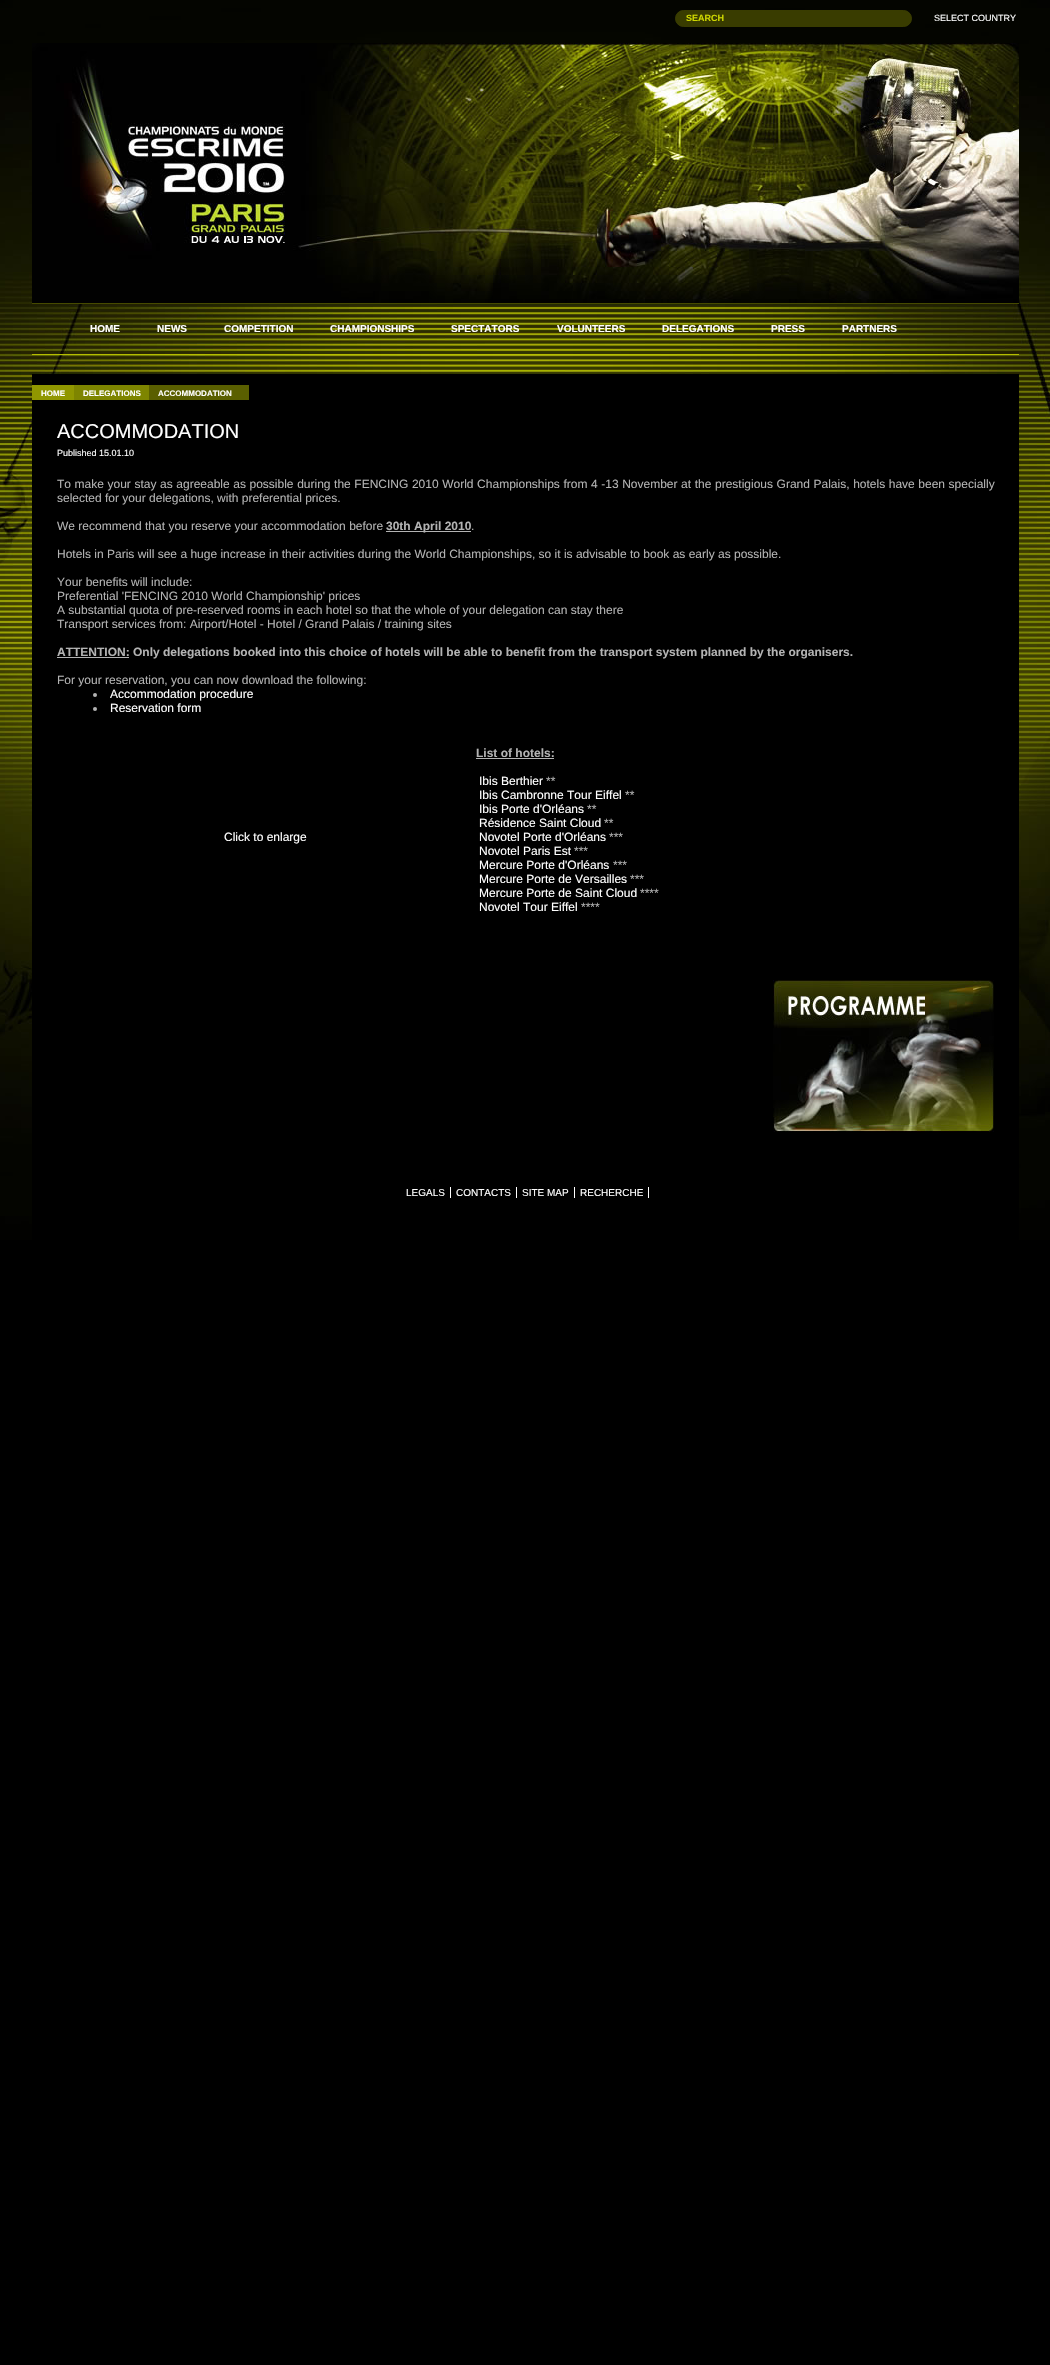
#include "include/core/SkBlurTypes.h"
#include "include/core/SkCanvas.h"
#include "include/core/SkData.h"
#include "include/core/SkFont.h"
#include "include/core/SkFontMgr.h"
#include "include/core/SkImage.h"
#include "include/core/SkMaskFilter.h"
#include "include/core/SkPaint.h"
#include "include/core/SkPathBuilder.h"
#include "include/core/SkTextBlob.h"
#include "include/effects/SkDashPathEffect.h"
#include "include/effects/SkGradientShader.h"
#include "include/utils/SkParsePath.h"

extern sk_sp<SkFontMgr> fontMgr;

void draw(SkCanvas* canvas) {
  SkPaint p;
  p.setAntiAlias(true);
  auto spacedText = [&](const char* s, float x, float y, const SkFont& font, const SkPaint& ink, float letter, float word) {
    std::vector<SkGlyphID> glyphs(font.countText(s, strlen(s), SkTextEncoding::kUTF8));
    std::vector<float> xs(glyphs.size());
    font.textToGlyphs(s, strlen(s), SkTextEncoding::kUTF8, glyphs);
    font.getXPos(glyphs, xs, x);
    float extra = 0;
    for (size_t i = 0; i < glyphs.size(); i++) {
      xs[i] += extra;
      extra += letter + word * (glyphs[i] == font.unicharToGlyph(' '));
    }
    canvas->drawTextBlob(SkTextBlob::MakeFromPosHGlyphs(glyphs, xs, y, font), 0, 0, ink);
  };
  canvas->clear(SK_ColorBLACK);
  canvas->drawImageRect(SkImages::DeferredFromEncodedData(SkData::MakeFromFileName("images/1.png")), SkRect::MakeLTRB(0, 0, 1050, 1240), SkSamplingOptions());
  p.setColor(SkColorSetRGB(57, 60, 0));
  canvas->drawRoundRect(SkRect::MakeLTRB(675.5f, 10.5f, 911.5f, 26.5f), 8, 8, p);
  p.setStyle(SkPaint::kStroke_Style);
  p.setStrokeWidth(1);
  canvas->drawRoundRect(SkRect::MakeLTRB(675.5f, 10.5f, 911.5f, 26.5f), 8, 8, p);
  canvas->drawImageRect(SkImages::DeferredFromEncodedData(SkData::MakeFromFileName("images/2.png")), SkRect::MakeLTRB(32, 43, 285, 303), SkSamplingOptions());
  canvas->drawImageRect(SkImages::DeferredFromEncodedData(SkData::MakeFromFileName("images/3.png")), SkRect::MakeLTRB(285, 43, 1019, 303), SkSamplingOptions());
  p.setStyle(SkPaint::kFill_Style);
  p.setColor(SkColorSetRGB(70, 74, 0));
  canvas->drawRect(SkRect::MakeLTRB(32, 303, 1019, 304), p);
  p.setColor(SkColorSetRGB(180, 189, 0));
  canvas->drawRect(SkRect::MakeLTRB(32, 354, 1019, 355), p);
  p.setColor(SK_ColorBLACK);
  canvas->drawRect(SkRect::MakeLTRB(32, 374, 1019, 1240), p);
  p.setColor(SkColorSetRGB(144, 151, 0));
  canvas->drawRect(SkRect::MakeLTRB(32, 385, 74, 400), p);
  p.setColor(SkColorSetRGB(126, 133, 0));
  canvas->drawRect(SkRect::MakeLTRB(74, 385, 149, 400), p);
  p.setColor(SkColorSetRGB(90, 95, 0));
  canvas->drawRect(SkRect::MakeLTRB(149, 385, 249, 400), p);
  p.setColor(SkColorSetRGB(179, 179, 179));
  canvas->drawRect(SkRect::MakeLTRB(386, 531, 471, 532), p);
  canvas->drawRect(SkRect::MakeLTRB(57, 657, 129, 658), p);
  canvas->drawCircle(95, 695, 2, p);
  canvas->drawCircle(95, 709, 2, p);
  canvas->drawRect(SkRect::MakeLTRB(476, 758, 554, 759), p);
  canvas->drawImageRect(SkImages::DeferredFromEncodedData(SkData::MakeFromFileName("images/4.png")), SkRect::MakeLTRB(773, 980, 994, 1132), SkSamplingOptions());
  p.setColor(SK_ColorWHITE);
  canvas->drawRect(SkRect::MakeLTRB(450, 1187, 451, 1198), p);
  canvas->drawRect(SkRect::MakeLTRB(516, 1187, 517, 1198), p);
  canvas->drawRect(SkRect::MakeLTRB(574, 1187, 575, 1198), p);
  canvas->drawRect(SkRect::MakeLTRB(648, 1187, 649, 1198), p);
  SkFont font1(fontMgr->matchFamilyStyle("Liberation Sans", SkFontStyle::Bold()), 9);
  font1.setSubpixel(true);
  p.setColor(SkColorSetRGB(205, 215, 0));
  canvas->drawString("SEARCH", 686, 21, font1, p);
  SkFont font2(fontMgr->matchFamilyStyle("Liberation Sans", SkFontStyle::Normal()), 9);
  font2.setSubpixel(true);
  p.setColor(SK_ColorWHITE);
  canvas->drawString("SELECT COUNTRY", 934, 21, font2, p);
  SkFont font3(fontMgr->matchFamilyStyle("Liberation Sans", SkFontStyle::Bold()), 10);
  font3.setSubpixel(true);
  canvas->drawString("HOME", 90, 332, font3, p);
  canvas->drawString("NEWS", 157, 332, font3, p);
  canvas->drawString("COMPETITION", 224, 332, font3, p);
  canvas->drawString("CHAMPIONSHIPS", 330, 332, font3, p);
  canvas->drawString("SPECTATORS", 451, 332, font3, p);
  canvas->drawString("VOLUNTEERS", 557, 332, font3, p);
  canvas->drawString("DELEGATIONS", 662, 332, font3, p);
  canvas->drawString("PRESS", 771, 332, font3, p);
  canvas->drawString("PARTNERS", 842, 332, font3, p);
  SkFont font4(fontMgr->matchFamilyStyle("Liberation Sans", SkFontStyle::Bold()), 8);
  font4.setSubpixel(true);
  canvas->drawString("HOME", 41, 396, font4, p);
  canvas->drawString("DELEGATIONS", 83, 396, font4, p);
  canvas->drawString("ACCOMMODATION", 158, 396, font4, p);
  SkFont font5(fontMgr->matchFamilyStyle("Liberation Sans", SkFontStyle::Normal()), 20);
  font5.setSubpixel(true);
  canvas->drawString("ACCOMMODATION", 57, 438, font5, p);
  canvas->drawString("Published 15.01.10", 57, 456, font2, p);
  SkFont font6(fontMgr->matchFamilyStyle("Liberation Sans", SkFontStyle::Normal()), 12);
  font6.setSubpixel(true);
  p.setColor(SkColorSetRGB(179, 179, 179));
  spacedText("To make your stay as agreeable as possible during the FENCING 2010 World Championships from 4 -13 November at the prestigious Grand Palais, hotels have been specially", 57, 488, font6, p, 0, 0.25f);
  canvas->drawString("selected for your delegations, with preferential prices.", 57, 502, font6, p);
  canvas->drawString("We recommend that you reserve your accommodation before", 57, 530, font6, p);
  SkFont font7(fontMgr->matchFamilyStyle("Liberation Sans", SkFontStyle::Bold()), 12);
  font7.setSubpixel(true);
  canvas->drawString("30th April 2010", 386, 530, font7, p);
  canvas->drawString(".", 471, 530, font6, p);
  canvas->drawString("Hotels in Paris will see a huge increase in their activities during the World Championships, so it is advisable to book as early as possible.", 57, 558, font6, p);
  canvas->drawString("Your benefits will include:", 57, 586, font6, p);
  canvas->drawString("Preferential 'FENCING 2010 World Championship' prices", 57, 600, font6, p);
  canvas->drawString("A substantial quota of pre-reserved rooms in each hotel so that the whole of your delegation can stay there", 57, 614, font6, p);
  canvas->drawString("Transport services from: Airport/Hotel - Hotel / Grand Palais / training sites", 57, 628, font6, p);
  canvas->drawString("ATTENTION: Only delegations booked into this choice of hotels will be able to benefit from the transport system planned by the organisers.", 57, 656, font7, p);
  canvas->drawString("For your reservation, you can now download the following:", 57, 684, font6, p);
  p.setColor(SK_ColorWHITE);
  canvas->drawString("Accommodation procedure", 110, 698, font6, p);
  canvas->drawString("Reservation form", 110, 712, font6, p);
  canvas->drawString("Click to enlarge", 224, 841, font6, p);
  p.setColor(SkColorSetRGB(179, 179, 179));
  canvas->drawString("List of hotels:", 476, 757, font7, p);
  p.setColor(SK_ColorWHITE);
  canvas->drawString("Ibis Berthier", 479, 785, font6, p);
  p.setColor(SkColorSetRGB(179, 179, 179));
  canvas->drawString("**", 546, 785, font6, p);
  p.setColor(SK_ColorWHITE);
  canvas->drawString("Ibis Cambronne Tour Eiffel", 479, 799, font6, p);
  p.setColor(SkColorSetRGB(179, 179, 179));
  canvas->drawString("**", 625, 799, font6, p);
  p.setColor(SK_ColorWHITE);
  canvas->drawString("Ibis Porte d'Orléans", 479, 813, font6, p);
  p.setColor(SkColorSetRGB(179, 179, 179));
  canvas->drawString("**", 587, 813, font6, p);
  p.setColor(SK_ColorWHITE);
  canvas->drawString("Résidence Saint Cloud", 479, 827, font6, p);
  p.setColor(SkColorSetRGB(179, 179, 179));
  canvas->drawString("**", 604, 827, font6, p);
  p.setColor(SK_ColorWHITE);
  canvas->drawString("Novotel Porte d'Orléans", 479, 841, font6, p);
  p.setColor(SkColorSetRGB(179, 179, 179));
  canvas->drawString("***", 609, 841, font6, p);
  p.setColor(SK_ColorWHITE);
  canvas->drawString("Novotel Paris Est", 479, 855, font6, p);
  p.setColor(SkColorSetRGB(179, 179, 179));
  canvas->drawString("***", 574, 855, font6, p);
  p.setColor(SK_ColorWHITE);
  canvas->drawString("Mercure Porte d'Orléans", 479, 869, font6, p);
  p.setColor(SkColorSetRGB(179, 179, 179));
  canvas->drawString("***", 613, 869, font6, p);
  p.setColor(SK_ColorWHITE);
  canvas->drawString("Mercure Porte de Versailles", 479, 883, font6, p);
  p.setColor(SkColorSetRGB(179, 179, 179));
  canvas->drawString("***", 630, 883, font6, p);
  p.setColor(SK_ColorWHITE);
  canvas->drawString("Mercure Porte de Saint Cloud", 479, 897, font6, p);
  p.setColor(SkColorSetRGB(179, 179, 179));
  canvas->drawString("****", 640, 897, font6, p);
  p.setColor(SK_ColorWHITE);
  canvas->drawString("Novotel Tour Eiffel", 479, 911, font6, p);
  p.setColor(SkColorSetRGB(179, 179, 179));
  canvas->drawString("****", 581, 911, font6, p);
  SkFont font8(fontMgr->matchFamilyStyle("Liberation Sans", SkFontStyle::Normal()), 10);
  font8.setSubpixel(true);
  p.setColor(SK_ColorWHITE);
  canvas->drawString("LEGALS", 406, 1196, font8, p);
  canvas->drawString("CONTACTS", 456, 1196, font8, p);
  canvas->drawString("SITE MAP", 522, 1196, font8, p);
  canvas->drawString("RECHERCHE", 580, 1196, font8, p);
}
